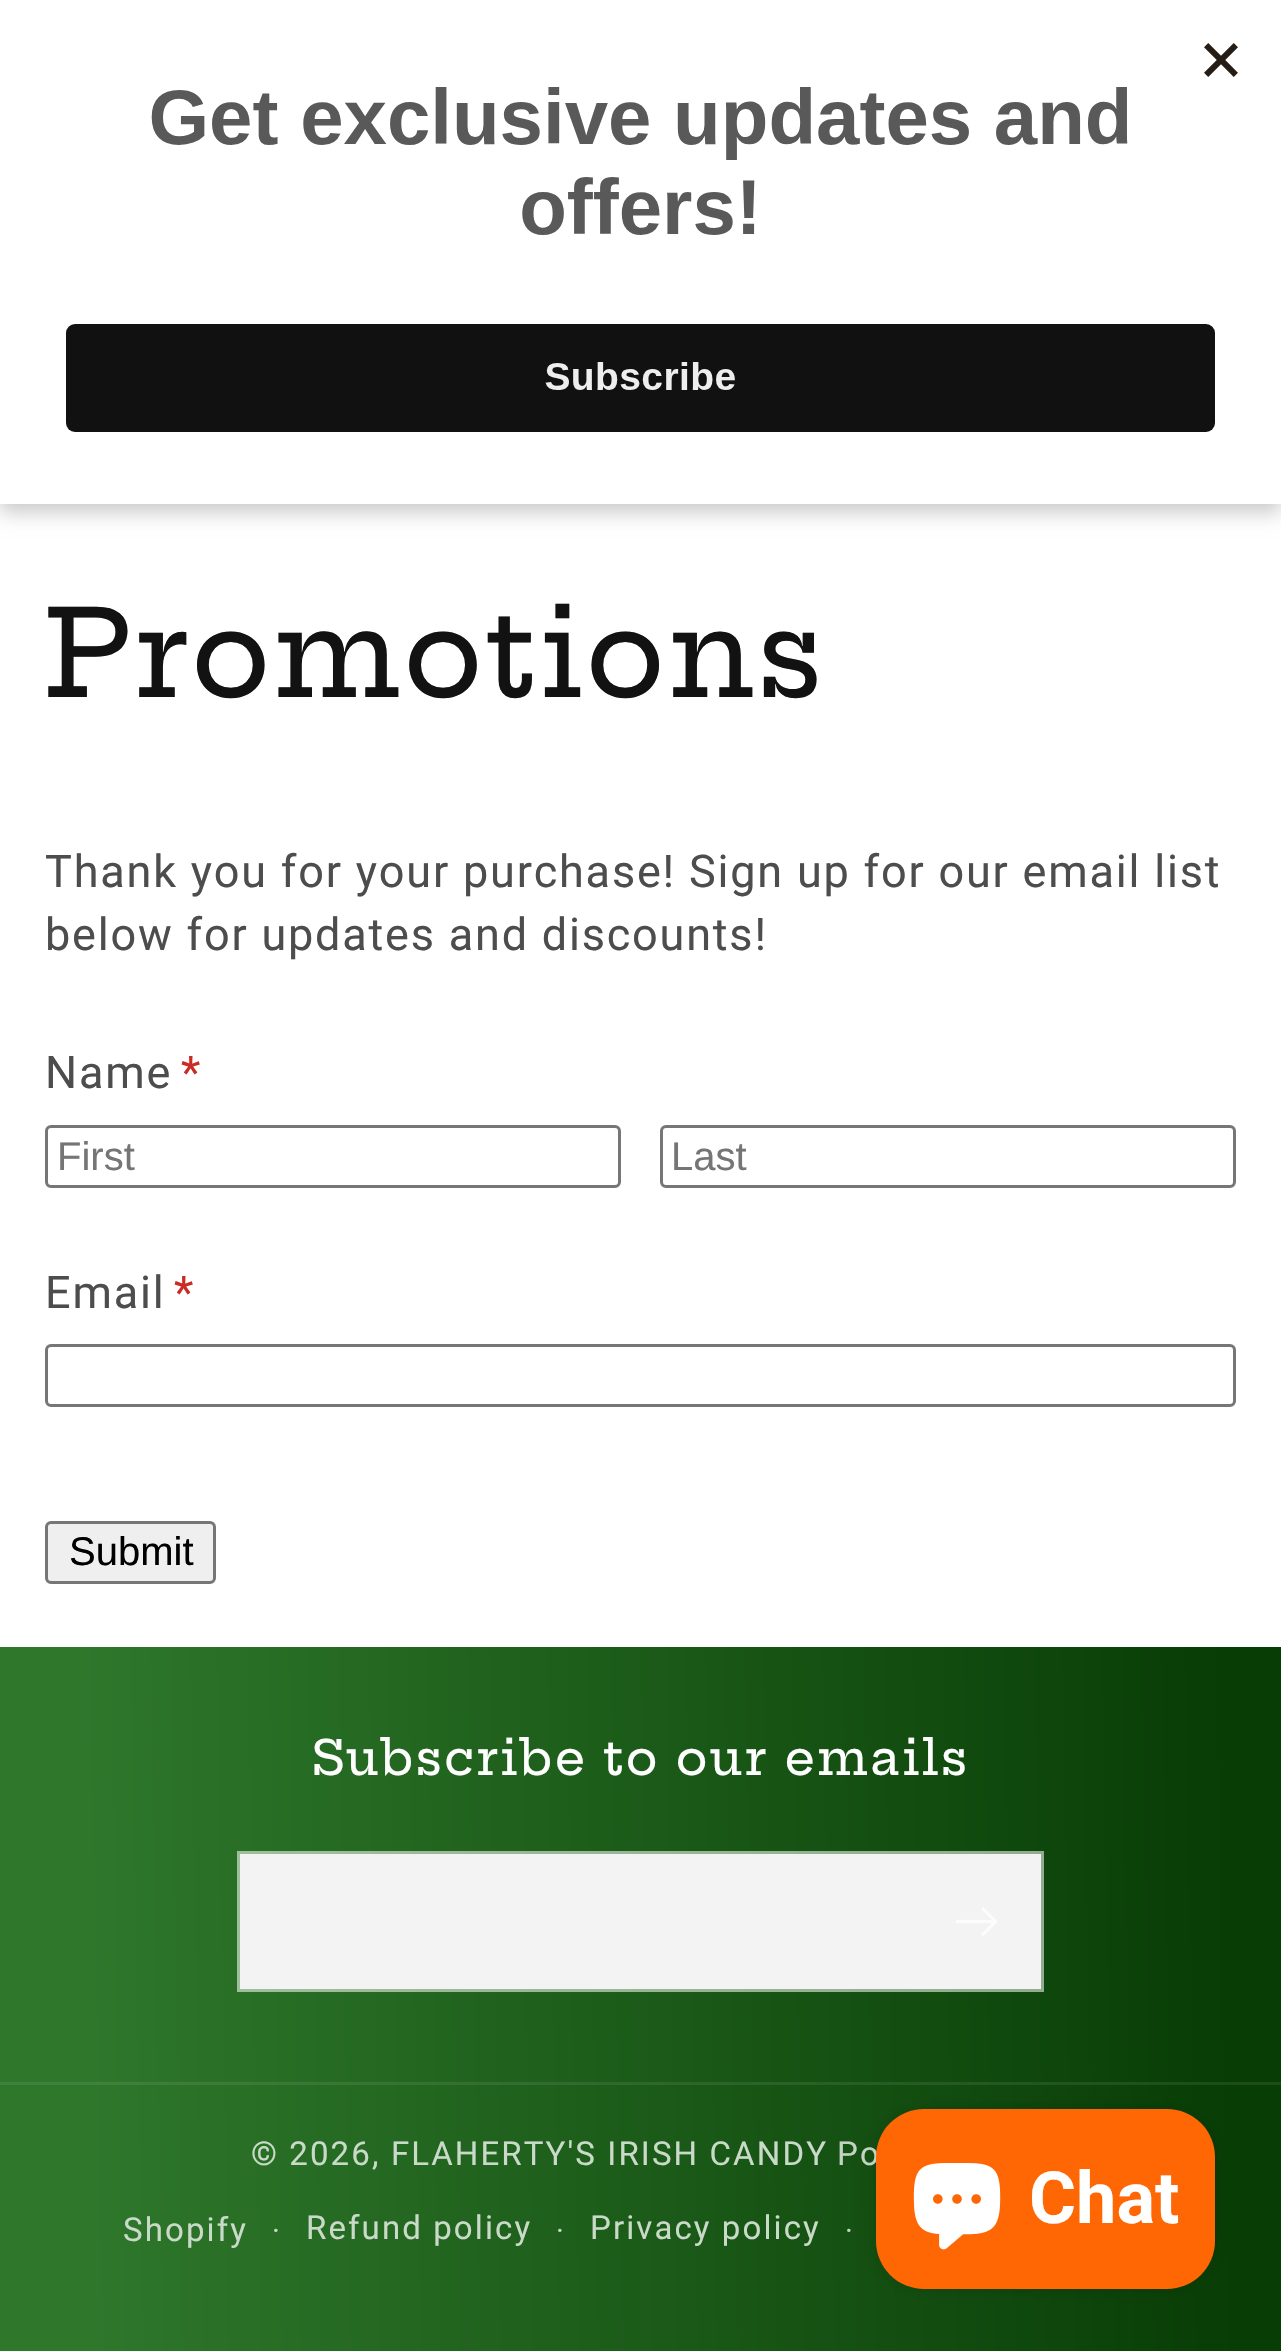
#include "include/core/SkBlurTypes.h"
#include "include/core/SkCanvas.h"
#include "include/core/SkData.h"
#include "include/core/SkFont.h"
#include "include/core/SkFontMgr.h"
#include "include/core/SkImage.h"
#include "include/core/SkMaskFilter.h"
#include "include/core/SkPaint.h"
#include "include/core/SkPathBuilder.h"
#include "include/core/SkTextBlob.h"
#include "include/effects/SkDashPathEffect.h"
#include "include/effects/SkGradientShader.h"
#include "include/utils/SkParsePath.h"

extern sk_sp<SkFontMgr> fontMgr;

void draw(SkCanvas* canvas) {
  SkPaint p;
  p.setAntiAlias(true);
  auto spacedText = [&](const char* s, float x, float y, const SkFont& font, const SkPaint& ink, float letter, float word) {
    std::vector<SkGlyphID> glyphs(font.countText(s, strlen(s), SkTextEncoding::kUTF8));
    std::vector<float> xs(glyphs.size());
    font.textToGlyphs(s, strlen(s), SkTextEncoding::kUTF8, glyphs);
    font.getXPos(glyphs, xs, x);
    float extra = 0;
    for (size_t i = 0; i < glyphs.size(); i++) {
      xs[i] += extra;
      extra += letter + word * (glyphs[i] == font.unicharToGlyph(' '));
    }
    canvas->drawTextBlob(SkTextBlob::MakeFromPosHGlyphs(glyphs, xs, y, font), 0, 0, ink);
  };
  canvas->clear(SK_ColorWHITE);
  p.setColor(SkColorSetARGB(51, 0, 0, 0));
  p.setMaskFilter(SkMaskFilter::MakeBlur(kNormal_SkBlurStyle, 9));
  canvas->drawRect(SkRect::MakeLTRB(0, 9, 1281, 513), p);
  p.setMaskFilter(nullptr);
  p.setColor(SK_ColorWHITE);
  canvas->drawRect(SkRect::MakeLTRB(0, 0, 1281, 504), p);
  canvas->drawImageRect(SkImages::DeferredFromEncodedData(SkData::MakeFromFileName("images/1.png")), SkRect::MakeLTRB(66, 43, 1238, 432), SkSamplingOptions());
  p.setStyle(SkPaint::kStroke_Style);
  p.setStrokeWidth(3);
  p.setColor(SkColorSetRGB(118, 118, 118));
  canvas->drawRoundRect(SkRect::MakeLTRB(46.5f, 1126.5f, 619.5f, 1186.5f), 4.5f, 4.5f, p);
  canvas->drawRoundRect(SkRect::MakeLTRB(661.5f, 1126.5f, 1234.5f, 1186.5f), 4.5f, 4.5f, p);
  canvas->drawRoundRect(SkRect::MakeLTRB(46.5f, 1345.5f, 1234.5f, 1405.5f), 4.5f, 4.5f, p);
  p.setStyle(SkPaint::kFill_Style);
  p.setColor(SkColorSetRGB(239, 239, 239));
  canvas->drawRoundRect(SkRect::MakeLTRB(46.5f, 1522.5f, 214.5f, 1582.5f), 4.5f, 4.5f, p);
  p.setStyle(SkPaint::kStroke_Style);
  p.setColor(SkColorSetRGB(118, 118, 118));
  canvas->drawRoundRect(SkRect::MakeLTRB(46.5f, 1522.5f, 214.5f, 1582.5f), 4.5f, 4.5f, p);
  p.setStyle(SkPaint::kFill_Style);
  {
    const SkColor colors[] = {SkColorSetRGB(46, 119, 43), SkColorSetRGB(8, 61, 5)};
    const float stops[] = {0.07f, 0.94f};
    const SkPoint ends[] = {{-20, 1188}, {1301, 1164}};
    p.setShader(SkGradientShader::MakeLinear(ends, colors, stops, 2, SkTileMode::kClamp));
    p.setAlpha(255);
  }
  canvas->drawRect(SkRect::MakeLTRB(0, 1647, 1281, 2351), p);
  {
    const SkColor colors[] = {SkColorSetRGB(63, 130, 60), SkColorSetRGB(28, 77, 25)};
    const float stops[] = {0.07f, 0.94f};
    const SkPoint ends[] = {{-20, 1188}, {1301, 1164}};
    p.setShader(SkGradientShader::MakeLinear(ends, colors, stops, 2, SkTileMode::kClamp));
    p.setAlpha(255);
  }
  canvas->drawRect(SkRect::MakeLTRB(0, 2082, 1281, 2085), p);
  p.setShader(nullptr);
  p.setColor(SkColorSetRGB(243, 243, 243));
  canvas->drawRect(SkRect::MakeLTRB(240, 1854, 1041, 1989), p);
  p.setStyle(SkPaint::kStroke_Style);
  p.setColor(SkColorSetARGB(140, 255, 255, 255));
  canvas->drawRect(SkRect::MakeLTRB(238.5f, 1852.5f, 1042.5f, 1990.5f), p);
  canvas->drawImageRect(SkImages::DeferredFromEncodedData(SkData::MakeFromFileName("images/2.png")), SkRect::MakeLTRB(956, 1907, 997, 1936), SkSamplingOptions());
  p.setStyle(SkPaint::kFill_Style);
  p.setColor(SkColorSetARGB(38, 0, 0, 0));
  p.setMaskFilter(SkMaskFilter::MakeBlur(kNormal_SkBlurStyle, 7.5f));
  canvas->drawRoundRect(SkRect::MakeLTRB(876, 2109, 1215, 2289), 48, 48, p);
  p.setMaskFilter(nullptr);
  SkFont font1(fontMgr->matchFamilyStyle("Hepta Slab", SkFontStyle(500, SkFontStyle::kNormal_Width, SkFontStyle::kUpright_Slant)), 120);
  font1.setSubpixel(true);
  p.setColor(SkColorSetRGB(18, 18, 18));
  spacedText("Promotions", 45, 697, font1, p, 1.8f, 0);
  SkFont font2(fontMgr->matchFamilyStyle("Roboto", SkFontStyle::Normal()), 45);
  font2.setSubpixel(true);
  p.setColor(SkColorSetRGB(77, 77, 77));
  spacedText("Thank you for your purchase! Sign up for our email list", 45, 887, font2, p, 1.8f, 0);
  spacedText("below for updates and discounts!", 45, 950, font2, p, 1.8f, 0);
  spacedText("Name", 45, 1088, font2, p, 1.8f, 0);
  p.setColor(SkColorSetRGB(204, 42, 36));
  spacedText("*", 181, 1088, font2, p, 1.8f, 0);
  SkFont font3(fontMgr->matchFamilyStyle("Liberation Sans", SkFontStyle::Normal()), 40);
  font3.setSubpixel(true);
  p.setColor(SkColorSetRGB(117, 117, 117));
  canvas->drawString("First", 57, 1170, font3, p);
  canvas->drawString("Last", 671, 1170, font3, p);
  p.setColor(SkColorSetRGB(77, 77, 77));
  spacedText("Email", 45, 1308, font2, p, 1.8f, 0);
  p.setColor(SkColorSetRGB(204, 42, 36));
  spacedText("*", 174, 1308, font2, p, 1.8f, 0);
  p.setColor(SK_ColorBLACK);
  canvas->drawString("Submit", 69, 1565, font3, p);
  SkFont font4(fontMgr->matchFamilyStyle("Hepta Slab", SkFontStyle(500, SkFontStyle::kNormal_Width, SkFontStyle::kUpright_Slant)), 48);
  font4.setSubpixel(true);
  p.setColor(SK_ColorWHITE);
  spacedText("Subscribe to our emails", 312, 1775, font4, p, 1.8f, 0);
  SkFont font5(fontMgr->matchFamilyStyle("Roboto", SkFontStyle::Normal()), 33);
  font5.setSubpixel(true);
  p.setColor(SkColorSetRGB(201, 218, 200));
  spacedText("© 2026,", 251, 2165, font5, p, 2.1f, 0);
  spacedText("FLAHERTY'S IRISH CANDY", 391, 2165, font5, p, 2.1f, 0);
  p.setColor(SkColorSetRGB(196, 210, 195));
  spacedText("Po", 837, 2165, font5, p, 2.1f, 0);
  p.setColor(SkColorSetRGB(201, 218, 200));
  spacedText("Shopify", 123, 2241, font5, p, 2.1f, 0);
  SkFont font6(fontMgr->matchFamilyStyle("Roboto", SkFontStyle::Normal()), 30);
  font6.setSubpixel(true);
  spacedText("·", 272, 2241, font6, p, 2.1f, 0);
  spacedText("Refund policy", 306, 2239, font5, p, 2.1f, 0);
  spacedText("·", 556, 2241, font6, p, 2.1f, 0);
  spacedText("Privacy policy", 590, 2239, font5, p, 2.1f, 0);
  p.setColor(SkColorSetRGB(196, 210, 195));
  spacedText("·", 845, 2241, font6, p, 2.1f, 0);
  p.setColor(SkColorSetRGB(254, 103, 3));
  canvas->drawRoundRect(SkRect::MakeLTRB(876, 2109, 1215, 2289), 48, 48, p);
  canvas->drawImageRect(SkImages::DeferredFromEncodedData(SkData::MakeFromFileName("images/3.png")), SkRect::MakeLTRB(913, 2163, 1001, 2250), SkSamplingOptions());
  SkFont font7(fontMgr->matchFamilyStyle("Roboto", SkFontStyle::Bold()), 72);
  font7.setSubpixel(true);
  p.setColor(SK_ColorWHITE);
  canvas->drawString("Chat", 1029, 2223, font7, p);
}
